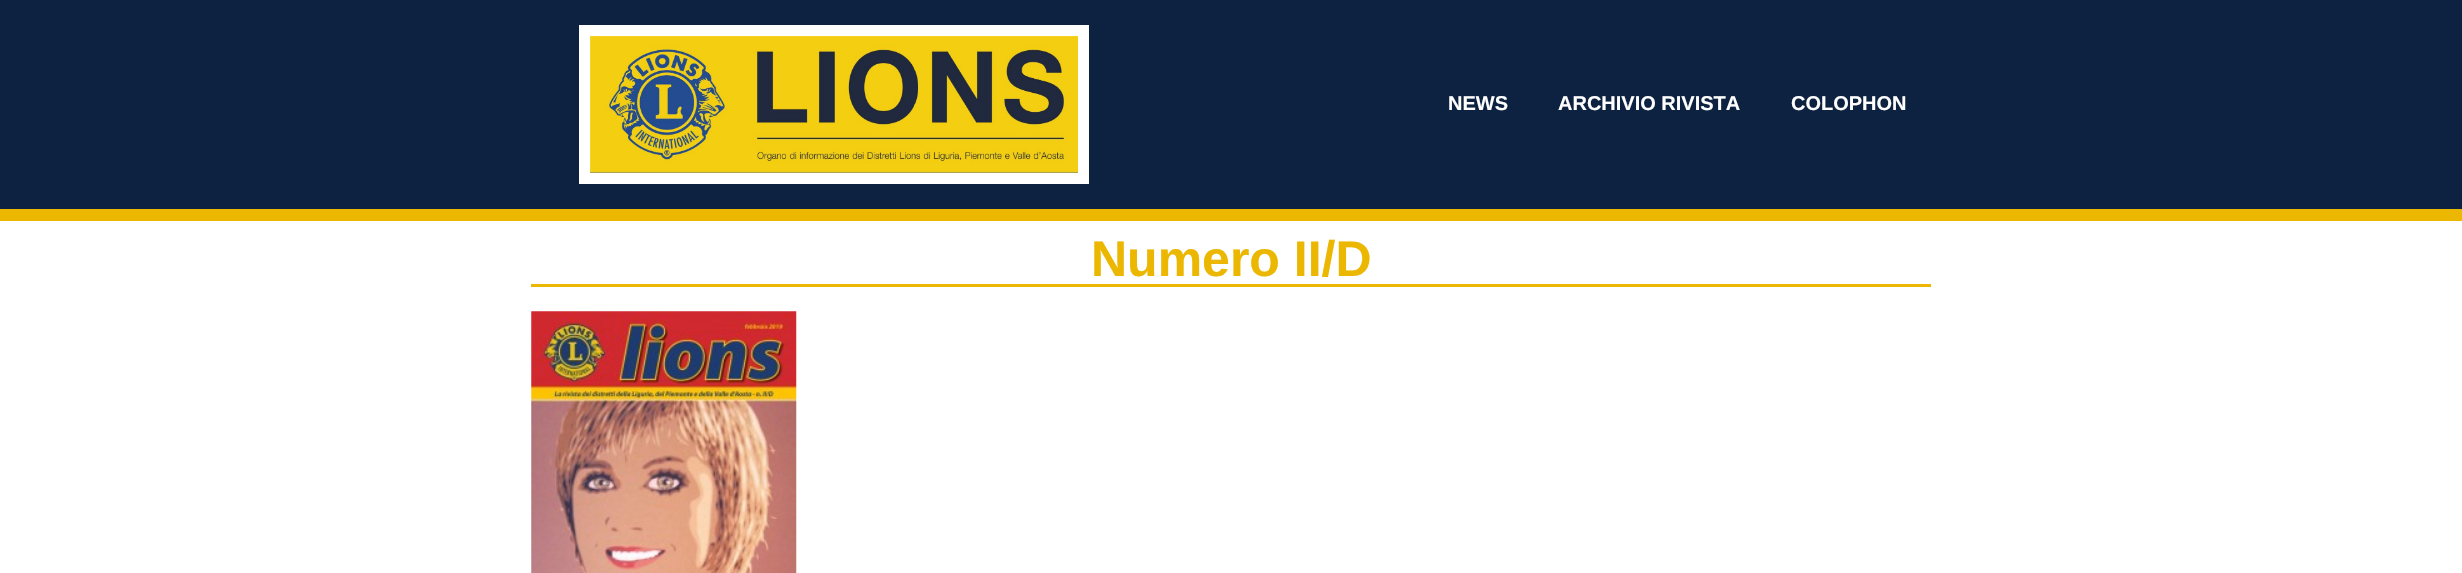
#include "include/core/SkBlurTypes.h"
#include "include/core/SkCanvas.h"
#include "include/core/SkData.h"
#include "include/core/SkFont.h"
#include "include/core/SkFontMgr.h"
#include "include/core/SkImage.h"
#include "include/core/SkMaskFilter.h"
#include "include/core/SkPaint.h"
#include "include/core/SkPathBuilder.h"
#include "include/core/SkTextBlob.h"
#include "include/effects/SkDashPathEffect.h"
#include "include/effects/SkGradientShader.h"
#include "include/utils/SkParsePath.h"

extern sk_sp<SkFontMgr> fontMgr;

void draw(SkCanvas* canvas) {
  SkPaint p;
  p.setAntiAlias(true);
  canvas->clear(SK_ColorWHITE);
  p.setColor(SkColorSetRGB(13, 34, 64));
  canvas->drawRect(SkRect::MakeLTRB(0, 0, 2462, 209), p);
  p.setStyle(SkPaint::kStroke_Style);
  p.setStrokeWidth(11);
  p.setColor(SK_ColorWHITE);
  canvas->drawRect(SkRect::MakeLTRB(584.5f, 30.5f, 1083.5f, 178.5f), p);
  canvas->drawImageRect(SkImages::DeferredFromEncodedData(SkData::MakeFromFileName("images/1.png")), SkRect::MakeLTRB(590, 36, 1078, 173), SkSamplingOptions());
  p.setStyle(SkPaint::kFill_Style);
  p.setColor(SkColorSetRGB(235, 183, 0));
  canvas->drawRect(SkRect::MakeLTRB(0, 209, 2462, 221), p);
  canvas->drawRect(SkRect::MakeLTRB(531, 284, 1931, 287), p);
  canvas->drawImageRect(SkImages::DeferredFromEncodedData(SkData::MakeFromFileName("images/2.png")), SkRect::MakeLTRB(531, 311, 797, 573), SkSamplingOptions());
  SkFont font1(fontMgr->matchFamilyStyle("Liberation Sans", SkFontStyle::Bold()), 20);
  font1.setSubpixel(true);
  p.setColor(SK_ColorWHITE);
  canvas->drawString("NEWS", 1448, 110, font1, p);
  canvas->drawString("ARCHIVIO RIVISTA", 1558, 110, font1, p);
  canvas->drawString("COLOPHON", 1791, 110, font1, p);
  SkFont font2(fontMgr->matchFamilyStyle("Liberation Sans", SkFontStyle::Bold()), 50);
  font2.setSubpixel(true);
  p.setColor(SkColorSetRGB(235, 183, 0));
  canvas->drawString("Numero II/D", 1091, 276, font2, p);
}
